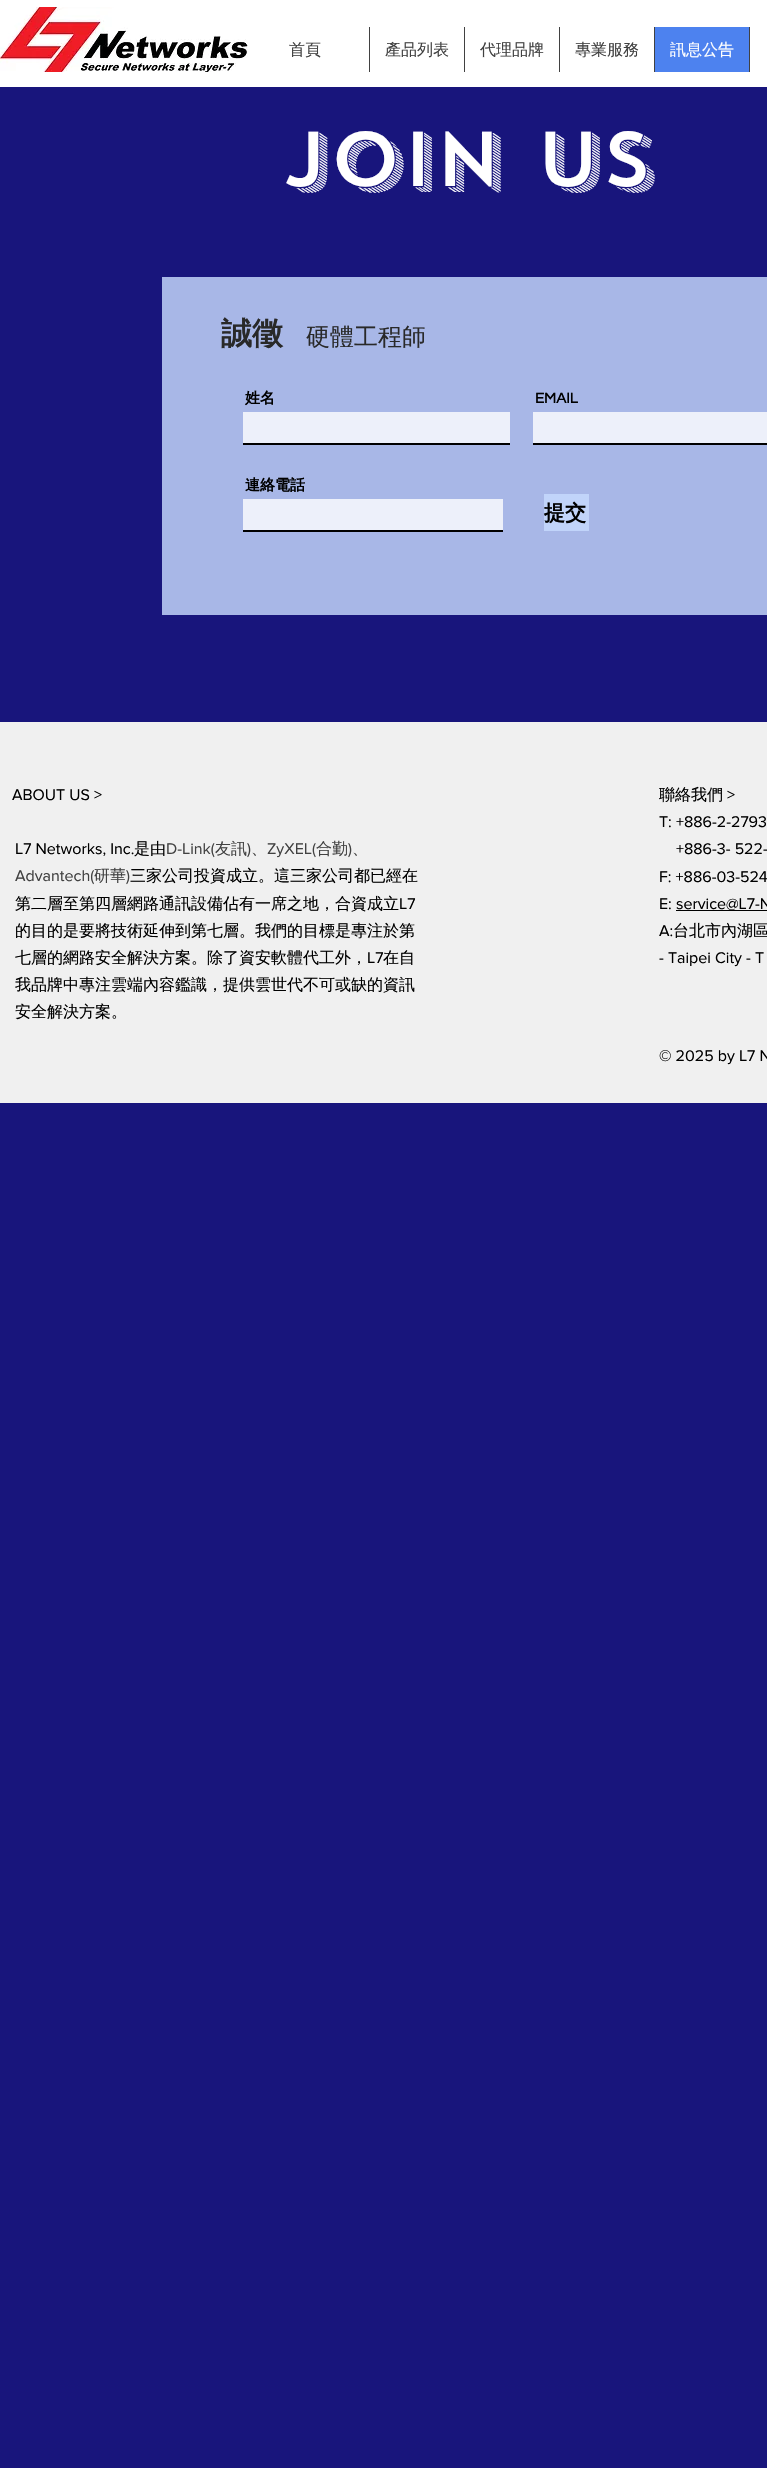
#include "include/core/SkBlurTypes.h"
#include "include/core/SkCanvas.h"
#include "include/core/SkData.h"
#include "include/core/SkFont.h"
#include "include/core/SkFontMgr.h"
#include "include/core/SkImage.h"
#include "include/core/SkMaskFilter.h"
#include "include/core/SkPaint.h"
#include "include/core/SkPathBuilder.h"
#include "include/core/SkTextBlob.h"
#include "include/effects/SkDashPathEffect.h"
#include "include/effects/SkGradientShader.h"
#include "include/utils/SkParsePath.h"

extern sk_sp<SkFontMgr> fontMgr;

void draw(SkCanvas* canvas) {
  SkPaint p;
  p.setAntiAlias(true);
  canvas->clear(SkColorSetRGB(24, 21, 124));
  p.setColor(SK_ColorWHITE);
  canvas->drawRect(SkRect::MakeLTRB(0, 0, 767, 87), p);
  canvas->drawImageRect(SkImages::DeferredFromEncodedData(SkData::MakeFromFileName("images/1.png")), SkRect::MakeLTRB(0, 7, 248, 72), SkSamplingOptions());
  p.setColor(SkColorSetRGB(65, 65, 65));
  canvas->drawRect(SkRect::MakeLTRB(369, 27, 370, 72), p);
  canvas->drawRect(SkRect::MakeLTRB(464, 27, 465, 72), p);
  canvas->drawRect(SkRect::MakeLTRB(559, 27, 560, 72), p);
  p.setColor(SkColorSetRGB(77, 130, 239));
  canvas->drawRect(SkRect::MakeLTRB(655, 27, 749, 72), p);
  p.setColor(SkColorSetRGB(65, 65, 65));
  canvas->drawRect(SkRect::MakeLTRB(654, 27, 655, 72), p);
  canvas->drawRect(SkRect::MakeLTRB(749, 27, 750, 72), p);
  p.setColor(SkColorSetRGB(168, 183, 231));
  canvas->drawRect(SkRect::MakeLTRB(162, 277, 767, 615), p);
  p.setColor(SkColorSetRGB(237, 240, 250));
  canvas->drawRect(SkRect::MakeLTRB(243, 412, 510, 443), p);
  p.setColor(SK_ColorBLACK);
  canvas->drawRect(SkRect::MakeLTRB(243, 443, 510, 445), p);
  p.setColor(SkColorSetRGB(237, 240, 250));
  canvas->drawRect(SkRect::MakeLTRB(533, 412, 767, 443), p);
  p.setColor(SK_ColorBLACK);
  canvas->drawRect(SkRect::MakeLTRB(533, 443, 767, 445), p);
  p.setColor(SkColorSetRGB(237, 240, 250));
  canvas->drawRect(SkRect::MakeLTRB(243, 499, 503, 530), p);
  p.setColor(SK_ColorBLACK);
  canvas->drawRect(SkRect::MakeLTRB(243, 530, 503, 532), p);
  p.setColor(SkColorSetRGB(193, 212, 250));
  canvas->drawRect(SkRect::MakeLTRB(544, 494, 589, 531), p);
  p.setColor(SkColorSetRGB(240, 240, 240));
  canvas->drawRect(SkRect::MakeLTRB(0, 722, 767, 1103), p);
  p.setColor(SK_ColorBLACK);
  canvas->drawRect(SkRect::MakeLTRB(676, 910, 767, 911), p);
  SkFont font1(fontMgr->matchFamilyStyle("WenQuanYi Zen Hei", SkFontStyle(500, SkFontStyle::kNormal_Width, SkFontStyle::kUpright_Slant)), 16);
  font1.setSubpixel(true);
  p.setColor(SkColorSetRGB(65, 65, 65));
  canvas->drawString("首頁", 289, 55, font1, p);
  canvas->drawString("產品列表", 385, 55, font1, p);
  canvas->drawString("代理品牌", 480, 55, font1, p);
  canvas->drawString("專業服務", 575, 55, font1, p);
  p.setColor(SK_ColorWHITE);
  canvas->drawString("訊息公告", 670, 55, font1, p);
  SkFont font2(fontMgr->matchFamilyStyle("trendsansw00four", SkFontStyle(500, SkFontStyle::kNormal_Width, SkFontStyle::kUpright_Slant)), 77);
  font2.setSubpixel(true);
  canvas->drawString("JOIN US", 283, 186, font2, p);
  SkFont font3(fontMgr->matchFamilyStyle("WenQuanYi Zen Hei", SkFontStyle::Bold()), 31);
  font3.setSubpixel(true);
  p.setColor(SkColorSetRGB(41, 41, 41));
  canvas->drawString("誠徵", 221, 344, font3, p);
  SkFont font4(fontMgr->matchFamilyStyle("WenQuanYi Zen Hei", SkFontStyle(500, SkFontStyle::kNormal_Width, SkFontStyle::kUpright_Slant)), 24);
  font4.setSubpixel(true);
  canvas->drawString("硬體工程師", 306, 345, font4, p);
  SkFont font5(fontMgr->matchFamilyStyle("WenQuanYi Zen Hei", SkFontStyle::Bold()), 15);
  font5.setSubpixel(true);
  p.setColor(SK_ColorBLACK);
  canvas->drawString("姓名", 245, 403, font5, p);
  SkFont font6(fontMgr->matchFamilyStyle("Questrial", SkFontStyle::Bold()), 15);
  font6.setSubpixel(true);
  canvas->drawString("EMAIL", 535, 403, font6, p);
  canvas->drawString("連絡電話", 245, 490, font5, p);
  SkFont font7(fontMgr->matchFamilyStyle("WenQuanYi Zen Hei", SkFontStyle::Bold()), 21);
  font7.setSubpixel(true);
  canvas->drawString("提交", 544, 520, font7, p);
  SkFont font8(fontMgr->matchFamilyStyle("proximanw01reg", SkFontStyle::Normal()), 16);
  font8.setSubpixel(true);
  canvas->drawString("ABOUT US >", 12, 800, font8, p);
  canvas->drawString("聯絡我們", 659, 800, font1, p);
  canvas->drawString(">", 727, 800, font8, p);
  canvas->drawString("T: +886-2-2793", 659, 827, font8, p);
  canvas->drawString("+886-3- 522-", 676, 854, font8, p);
  canvas->drawString("F: +886-03-524", 659, 882, font8, p);
  canvas->drawString("E:", 659, 909, font8, p);
  canvas->drawString("service@L7-N", 676, 909, font8, p);
  canvas->drawString("A:", 659, 936, font8, p);
  canvas->drawString("台北市內湖區", 673, 936, font1, p);
  canvas->drawString("- Taipei City - T", 659, 963, font8, p);
  canvas->drawString("L7 Networks, Inc.", 15, 854, font8, p);
  canvas->drawString("是由", 134, 854, font1, p);
  p.setColor(SkColorSetRGB(65, 65, 65));
  canvas->drawString("D-Link(", 166, 854, font8, p);
  canvas->drawString("友訊", 215, 854, font1, p);
  canvas->drawString(")", 247, 854, font8, p);
  canvas->drawString("、", 251, 854, font1, p);
  canvas->drawString("ZyXEL(", 267, 854, font8, p);
  canvas->drawString("合勤", 316, 854, font1, p);
  canvas->drawString(")", 348, 854, font8, p);
  canvas->drawString("、", 352, 854, font1, p);
  canvas->drawString("Advantech(", 15, 881, font8, p);
  canvas->drawString("研華", 94, 881, font1, p);
  canvas->drawString(")", 126, 881, font8, p);
  p.setColor(SK_ColorBLACK);
  canvas->drawString("三家公司投資成立。這三家公司都已經在", 130, 881, font1, p);
  canvas->drawString("第二層至第四層網路通訊設備佔有一席之地，合資成立", 15, 909, font1, p);
  canvas->drawString("L7", 399, 909, font8, p);
  canvas->drawString("的目的是要將技術延伸到第七層。我們的目標是專注於第", 15, 936, font1, p);
  canvas->drawString("七層的網路安全解決方案。除了資安軟體代工外，", 15, 963, font1, p);
  canvas->drawString("L7", 367, 963, font8, p);
  canvas->drawString("在自", 383, 963, font1, p);
  canvas->drawString("我品牌中專注雲端內容鑑識，提供雲世代不可或缺的資訊", 15, 990, font1, p);
  canvas->drawString("安全解決方案。", 15, 1017, font1, p);
  canvas->drawString("© 2025 by L7 N", 659, 1061, font8, p);
}
